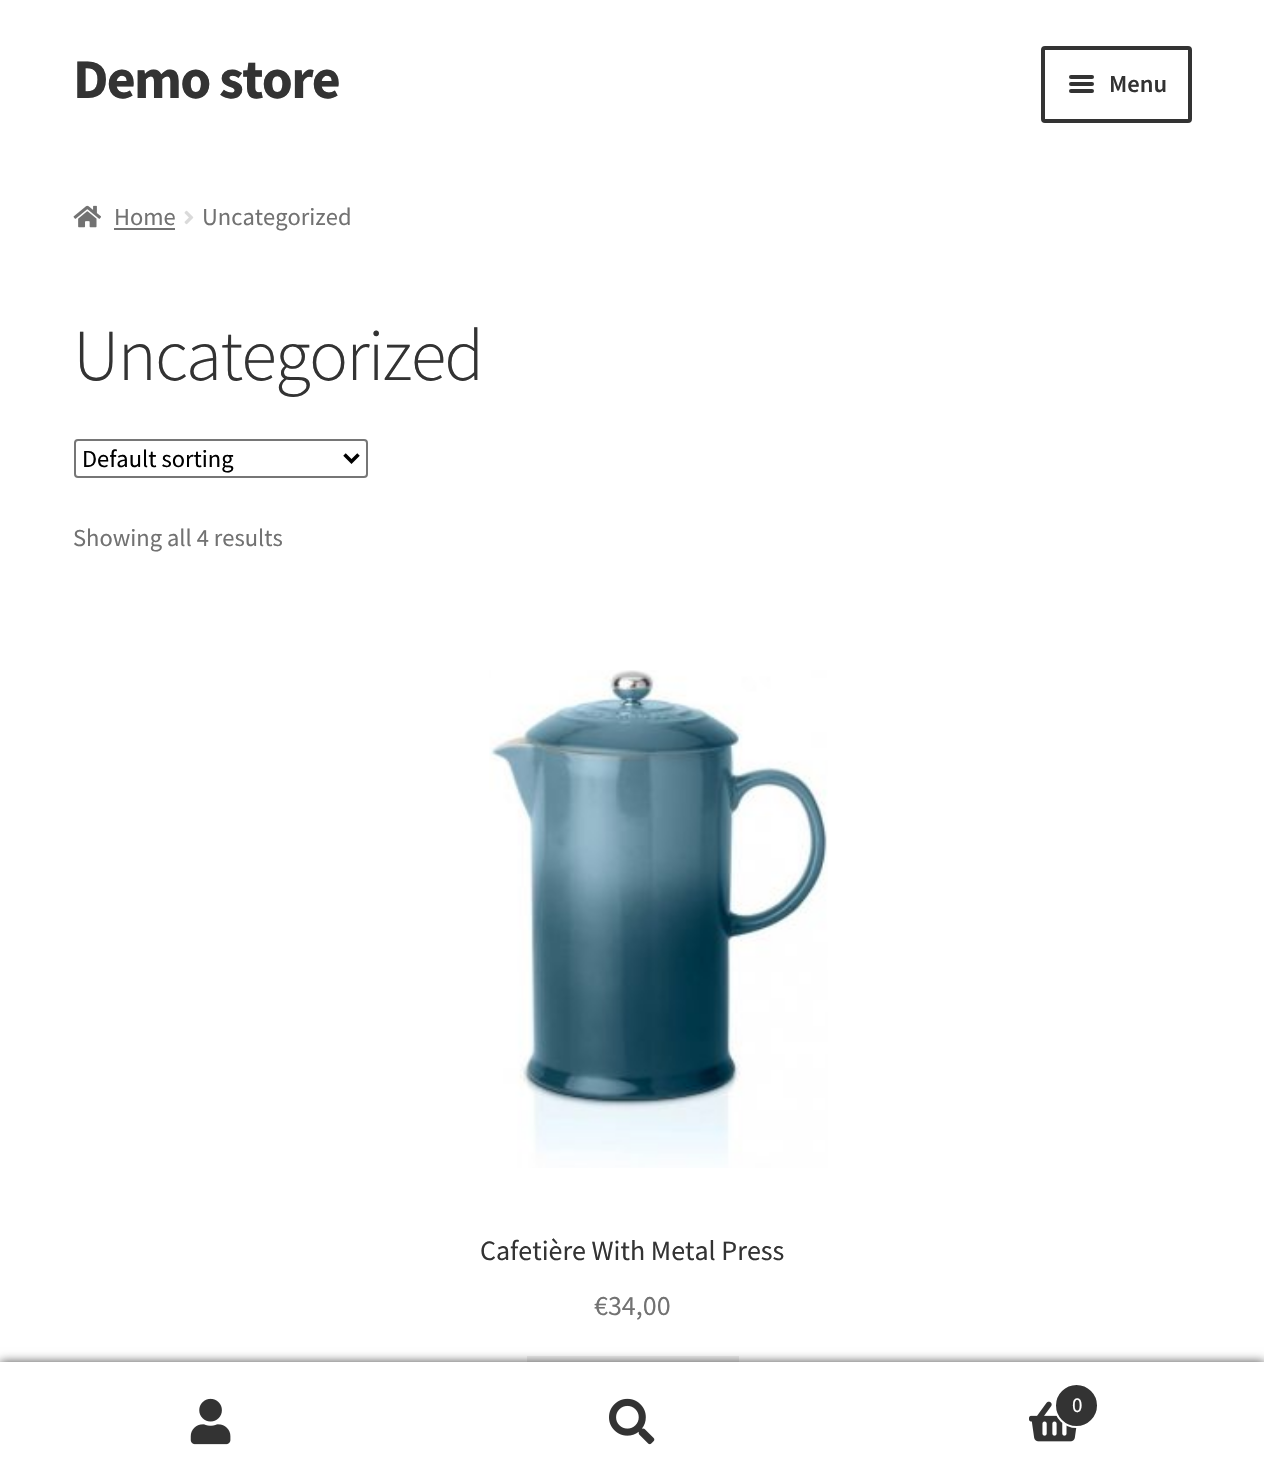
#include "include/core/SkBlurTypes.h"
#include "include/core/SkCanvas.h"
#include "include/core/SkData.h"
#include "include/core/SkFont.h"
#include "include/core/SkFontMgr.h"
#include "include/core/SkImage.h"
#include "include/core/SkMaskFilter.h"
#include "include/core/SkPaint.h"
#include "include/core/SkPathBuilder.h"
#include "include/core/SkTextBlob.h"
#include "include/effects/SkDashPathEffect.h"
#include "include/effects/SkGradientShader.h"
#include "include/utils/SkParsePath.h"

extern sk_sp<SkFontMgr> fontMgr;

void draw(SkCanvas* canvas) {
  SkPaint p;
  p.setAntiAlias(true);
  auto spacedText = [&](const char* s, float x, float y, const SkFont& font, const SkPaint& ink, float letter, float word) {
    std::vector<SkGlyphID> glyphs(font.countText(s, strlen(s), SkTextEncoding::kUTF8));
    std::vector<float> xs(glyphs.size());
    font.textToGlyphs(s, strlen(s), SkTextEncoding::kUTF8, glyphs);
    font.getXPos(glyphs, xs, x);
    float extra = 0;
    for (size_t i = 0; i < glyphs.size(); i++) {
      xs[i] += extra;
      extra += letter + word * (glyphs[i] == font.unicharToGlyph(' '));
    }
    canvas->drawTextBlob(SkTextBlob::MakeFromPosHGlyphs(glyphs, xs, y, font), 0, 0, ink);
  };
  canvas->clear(SK_ColorWHITE);
  p.setStyle(SkPaint::kStroke_Style);
  p.setStrokeWidth(4);
  p.setColor(SkColorSetRGB(51, 51, 51));
  canvas->drawRoundRect(SkRect::MakeLTRB(1043, 48, 1190, 121), 2, 2, p);
  p.setStyle(SkPaint::kFill_Style);
  canvas->drawRoundRect(SkRect::MakeLTRB(1069, 75, 1094, 79), 2, 2, p);
  canvas->drawRoundRect(SkRect::MakeLTRB(1069, 82, 1094, 86), 2, 2, p);
  canvas->drawRoundRect(SkRect::MakeLTRB(1069, 89, 1094, 93), 2, 2, p);
  canvas->drawImageRect(SkImages::DeferredFromEncodedData(SkData::MakeFromFileName("images/1.png")), SkRect::MakeLTRB(73, 205, 101, 228), SkSamplingOptions());
  p.setColor(SkColorSetRGB(114, 114, 114));
  canvas->drawRect(SkRect::MakeLTRB(114, 228, 175, 230), p);
  canvas->drawImageRect(SkImages::DeferredFromEncodedData(SkData::MakeFromFileName("images/2.png")), SkRect::MakeLTRB(184, 210, 194, 225), SkSamplingOptions());
  p.setStyle(SkPaint::kStroke_Style);
  p.setStrokeWidth(2);
  p.setColor(SkColorSetRGB(118, 118, 118));
  canvas->drawRoundRect(SkRect::MakeLTRB(75, 440, 367, 477), 3, 3, p);
  p.setStrokeWidth(3.5f);
  p.setColor(SK_ColorBLACK);
  canvas->drawPath(SkPathBuilder().moveTo(344.5f, 454.5f).lineTo(351.5f, 461.5f).lineTo(358.5f, 454.5f).detach(), p);
  canvas->drawImageRect(SkImages::DeferredFromEncodedData(SkData::MakeFromFileName("images/3.png")), SkRect::MakeLTRB(489, 670, 828, 1168), SkSamplingOptions());
  p.setStyle(SkPaint::kFill_Style);
  p.setColor(SkColorSetRGB(238, 238, 238));
  canvas->drawRect(SkRect::MakeLTRB(527, 1356, 739, 1362), p);
  p.setColor(SkColorSetARGB(179, 0, 0, 0));
  p.setMaskFilter(SkMaskFilter::MakeBlur(kNormal_SkBlurStyle, 5));
  canvas->drawRect(SkRect::MakeLTRB(0, 1362, 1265, 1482), p);
  p.setMaskFilter(nullptr);
  p.setColor(SK_ColorWHITE);
  canvas->drawRect(SkRect::MakeLTRB(0, 1362, 1264, 1363), p);
  canvas->drawRect(SkRect::MakeLTRB(0, 1363, 1264, 1481), p);
  canvas->drawImageRect(SkImages::DeferredFromEncodedData(SkData::MakeFromFileName("images/4.png")), SkRect::MakeLTRB(190, 1398, 231, 1445), SkSamplingOptions());
  canvas->drawImageRect(SkImages::DeferredFromEncodedData(SkData::MakeFromFileName("images/5.png")), SkRect::MakeLTRB(609, 1398, 655, 1445), SkSamplingOptions());
  canvas->drawImageRect(SkImages::DeferredFromEncodedData(SkData::MakeFromFileName("images/6.png")), SkRect::MakeLTRB(1029, 1401, 1077, 1442), SkSamplingOptions());
  p.setColor(SkColorSetRGB(51, 51, 51));
  canvas->drawCircle(1076.5f, 1405.5f, 21.5f, p);
  p.setStyle(SkPaint::kStroke_Style);
  p.setStrokeWidth(2);
  p.setColor(SK_ColorWHITE);
  canvas->drawCircle(1076.5f, 1405.5f, 21.5f, p);
  SkFont font1(fontMgr->matchFamilyStyle("Source Sans Pro", SkFontStyle::Bold()), 56);
  font1.setSubpixel(true);
  p.setStyle(SkPaint::kFill_Style);
  p.setColor(SkColorSetRGB(51, 51, 51));
  spacedText("Demo store", 73, 98, font1, p, -1.75f, 0);
  SkFont font2(fontMgr->matchFamilyStyle("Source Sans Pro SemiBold", SkFontStyle(600, SkFontStyle::kNormal_Width, SkFontStyle::kUpright_Slant)), 24.5f);
  font2.setSubpixel(true);
  canvas->drawString("Menu", 1109, 92, font2, p);
  SkFont font3(fontMgr->matchFamilyStyle("Source Sans Pro", SkFontStyle::Normal()), 24.5f);
  font3.setSubpixel(true);
  p.setColor(SkColorSetRGB(114, 114, 114));
  canvas->drawString("Home", 114, 225, font3, p);
  canvas->drawString("Uncategorized", 202, 225, font3, p);
  SkFont font4(fontMgr->matchFamilyStyle("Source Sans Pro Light", SkFontStyle(300, SkFontStyle::kNormal_Width, SkFontStyle::kUpright_Slant)), 73.25f);
  font4.setSubpixel(true);
  p.setColor(SkColorSetRGB(51, 51, 51));
  spacedText("Uncategorized", 73, 380, font4, p, -1.75f, 0);
  p.setColor(SK_ColorBLACK);
  canvas->drawString("Default sorting", 82, 467, font3, p);
  p.setColor(SkColorSetRGB(114, 114, 114));
  canvas->drawString("Showing all 4 results", 73, 546, font3, p);
  SkFont font5(fontMgr->matchFamilyStyle("Source Sans Pro", SkFontStyle::Normal()), 28);
  font5.setSubpixel(true);
  p.setColor(SkColorSetRGB(51, 51, 51));
  canvas->drawString("Cafetière With Metal Press", 480, 1260, font5, p);
  p.setColor(SkColorSetRGB(114, 114, 114));
  canvas->drawString("€34,00", 594, 1315, font5, p);
  SkFont font6(fontMgr->matchFamilyStyle("Source Sans Pro", SkFontStyle::Normal()), 21);
  font6.setSubpixel(true);
  p.setColor(SK_ColorWHITE);
  canvas->drawString("0", 1072, 1412, font6, p);
}
